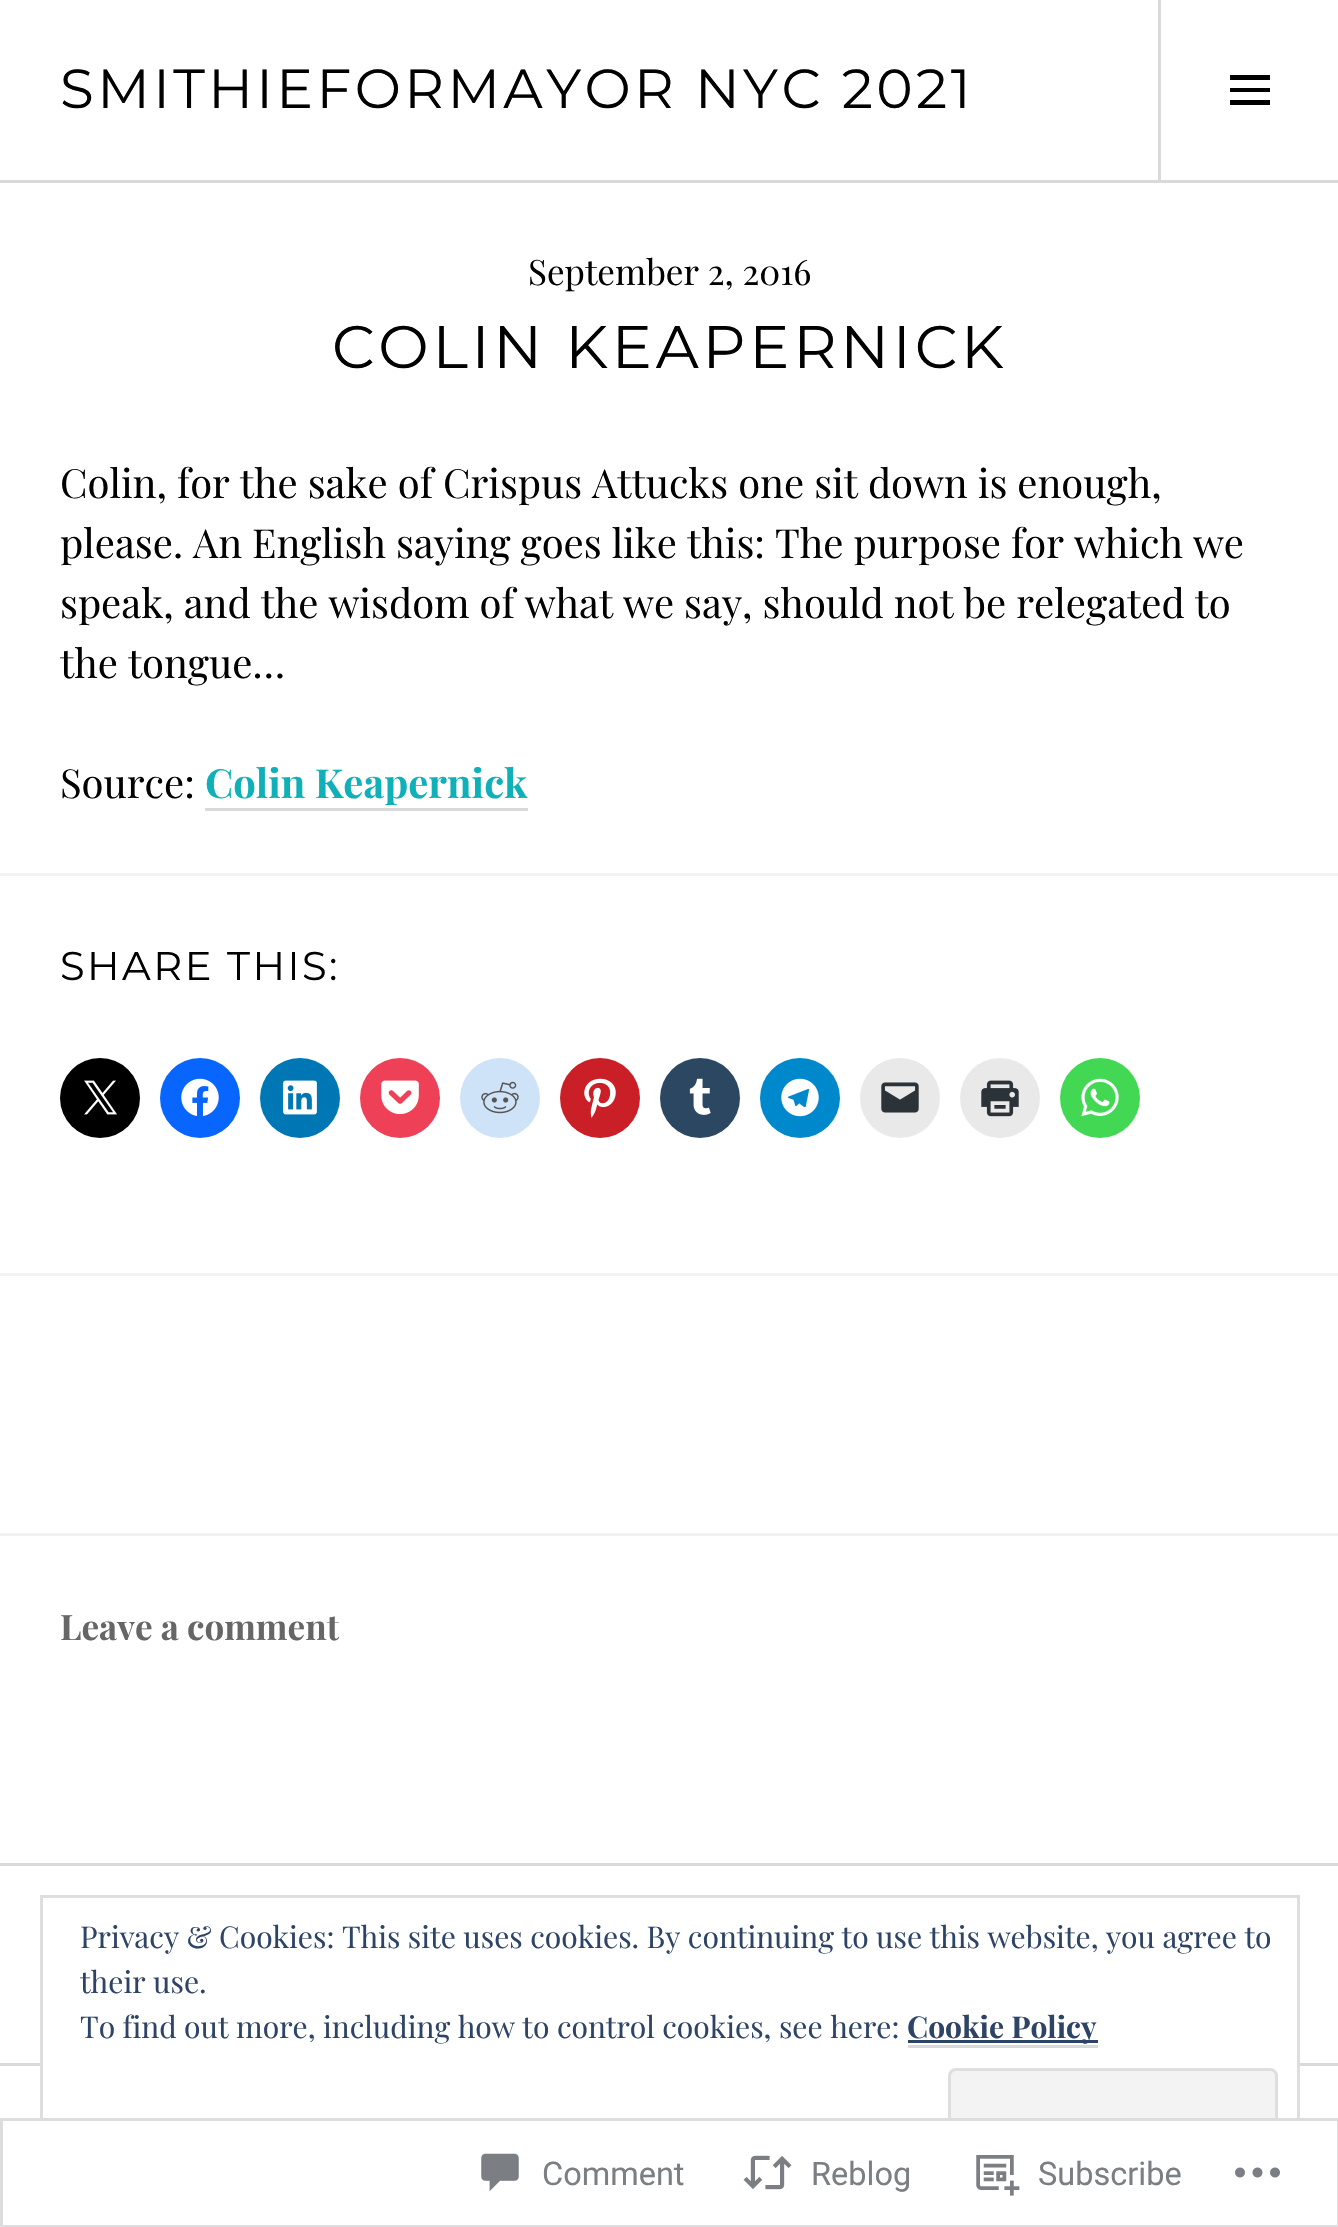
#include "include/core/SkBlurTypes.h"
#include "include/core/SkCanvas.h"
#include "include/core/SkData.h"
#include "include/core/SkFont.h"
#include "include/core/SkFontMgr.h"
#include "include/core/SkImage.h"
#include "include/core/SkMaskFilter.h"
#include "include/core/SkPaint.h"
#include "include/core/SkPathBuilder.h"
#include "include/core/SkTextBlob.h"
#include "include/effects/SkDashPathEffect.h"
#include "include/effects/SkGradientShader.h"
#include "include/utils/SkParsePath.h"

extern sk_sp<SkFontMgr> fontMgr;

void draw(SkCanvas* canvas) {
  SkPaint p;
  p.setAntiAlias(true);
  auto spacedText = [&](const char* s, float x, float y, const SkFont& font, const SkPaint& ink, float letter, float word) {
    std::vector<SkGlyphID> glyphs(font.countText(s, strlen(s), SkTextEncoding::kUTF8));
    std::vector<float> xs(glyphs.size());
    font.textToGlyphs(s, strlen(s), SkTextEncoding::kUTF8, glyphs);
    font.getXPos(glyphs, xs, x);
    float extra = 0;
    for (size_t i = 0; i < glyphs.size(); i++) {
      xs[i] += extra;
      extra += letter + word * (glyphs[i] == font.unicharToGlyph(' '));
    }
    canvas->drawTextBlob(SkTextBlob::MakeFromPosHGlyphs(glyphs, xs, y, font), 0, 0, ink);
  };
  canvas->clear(SK_ColorWHITE);
  p.setColor(SkColorSetRGB(217, 217, 217));
  canvas->drawRect(SkRect::MakeLTRB(0, 180, 1338, 183), p);
  canvas->drawRect(SkRect::MakeLTRB(1158, 0, 1161, 180), p);
  p.setColor(SK_ColorBLACK);
  canvas->drawPath(SkPathBuilder().moveTo(1230, 105).lineTo(1230, 100).lineTo(1270, 100).lineTo(1270, 105).close().moveTo(1230, 75).lineTo(1270, 75).lineTo(1270, 80).lineTo(1230, 80).close().moveTo(1230, 92).lineTo(1230, 88).lineTo(1270, 88).lineTo(1270, 92).close().detach(), p);
  p.setColor(SkColorSetRGB(217, 217, 217));
  canvas->drawRect(SkRect::MakeLTRB(205, 808, 528, 811), p);
  p.setColor(SkColorSetRGB(242, 242, 242));
  canvas->drawRect(SkRect::MakeLTRB(0, 873, 1338, 876), p);
  p.setColor(SK_ColorBLACK);
  canvas->drawCircle(100, 1098, 40, p);
  canvas->drawImageRect(SkImages::DeferredFromEncodedData(SkData::MakeFromFileName("images/1.png")), SkRect::MakeLTRB(84, 1080, 117, 1115), SkSamplingOptions());
  p.setColor(SkColorSetRGB(8, 102, 255));
  canvas->drawCircle(200, 1098, 40, p);
  canvas->drawImageRect(SkImages::DeferredFromEncodedData(SkData::MakeFromFileName("images/2.png")), SkRect::MakeLTRB(181, 1078, 219, 1116), SkSamplingOptions());
  p.setColor(SkColorSetRGB(0, 119, 181));
  canvas->drawCircle(300, 1098, 40, p);
  canvas->drawImageRect(SkImages::DeferredFromEncodedData(SkData::MakeFromFileName("images/3.png")), SkRect::MakeLTRB(283, 1080, 317, 1115), SkSamplingOptions());
  p.setColor(SkColorSetRGB(238, 64, 86));
  canvas->drawCircle(400, 1098, 40, p);
  canvas->drawImageRect(SkImages::DeferredFromEncodedData(SkData::MakeFromFileName("images/4.png")), SkRect::MakeLTRB(381, 1080, 419, 1115), SkSamplingOptions());
  p.setColor(SkColorSetRGB(206, 227, 248));
  canvas->drawCircle(500, 1098, 40, p);
  canvas->drawImageRect(SkImages::DeferredFromEncodedData(SkData::MakeFromFileName("images/5.png")), SkRect::MakeLTRB(481, 1081, 519, 1114), SkSamplingOptions());
  p.setColor(SkColorSetRGB(202, 31, 39));
  canvas->drawCircle(600, 1098, 40, p);
  canvas->drawImageRect(SkImages::DeferredFromEncodedData(SkData::MakeFromFileName("images/6.png")), SkRect::MakeLTRB(584, 1078, 616, 1118), SkSamplingOptions());
  p.setColor(SkColorSetRGB(44, 71, 98));
  canvas->drawCircle(700, 1098, 40, p);
  canvas->drawImageRect(SkImages::DeferredFromEncodedData(SkData::MakeFromFileName("images/7.png")), SkRect::MakeLTRB(689, 1078, 711, 1115), SkSamplingOptions());
  p.setColor(SkColorSetRGB(0, 136, 204));
  canvas->drawCircle(800, 1098, 40, p);
  canvas->drawImageRect(SkImages::DeferredFromEncodedData(SkData::MakeFromFileName("images/8.png")), SkRect::MakeLTRB(781, 1078, 819, 1117), SkSamplingOptions());
  p.setColor(SkColorSetRGB(233, 233, 233));
  canvas->drawCircle(900, 1098, 40, p);
  canvas->drawImageRect(SkImages::DeferredFromEncodedData(SkData::MakeFromFileName("images/9.png")), SkRect::MakeLTRB(881, 1082, 919, 1113), SkSamplingOptions());
  canvas->drawCircle(1000, 1098, 40, p);
  canvas->drawImageRect(SkImages::DeferredFromEncodedData(SkData::MakeFromFileName("images/10.png")), SkRect::MakeLTRB(981, 1080, 1019, 1117), SkSamplingOptions());
  p.setColor(SkColorSetRGB(67, 216, 84));
  canvas->drawCircle(1100, 1098, 40, p);
  canvas->drawImageRect(SkImages::DeferredFromEncodedData(SkData::MakeFromFileName("images/11.png")), SkRect::MakeLTRB(1081, 1078, 1119, 1117), SkSamplingOptions());
  p.setColor(SkColorSetRGB(242, 242, 242));
  canvas->drawRect(SkRect::MakeLTRB(0, 1273, 1338, 1276), p);
  canvas->drawRect(SkRect::MakeLTRB(0, 1533, 1338, 1536), p);
  p.setColor(SkColorSetRGB(217, 217, 217));
  canvas->drawRect(SkRect::MakeLTRB(0, 1863, 1338, 1866), p);
  canvas->drawRect(SkRect::MakeLTRB(0, 2063, 1338, 2066), p);
  canvas->drawRect(SkRect::MakeLTRB(670, 2188, 673, 2227), p);
  p.setColor(SK_ColorWHITE);
  canvas->drawRect(SkRect::MakeLTRB(43, 2063, 1297, 2066), p);
  p.setStyle(SkPaint::kStroke_Style);
  p.setStrokeWidth(3);
  p.setColor(SkColorSetRGB(222, 222, 222));
  canvas->drawRect(SkRect::MakeLTRB(41.5f, 1896.5f, 1298.5f, 2186.5f), p);
  p.setStyle(SkPaint::kFill_Style);
  p.setColor(SkColorSetRGB(217, 217, 217));
  canvas->drawRect(SkRect::MakeLTRB(908, 2045, 1098, 2048), p);
  p.setColor(SkColorSetRGB(46, 68, 103));
  canvas->drawRect(SkRect::MakeLTRB(908, 2040, 1098, 2043), p);
  p.setColor(SkColorSetRGB(243, 243, 243));
  canvas->drawRoundRect(SkRect::MakeLTRB(949.5f, 2069.5f, 1276.5f, 2163.5f), 6.5f, 6.5f, p);
  p.setStyle(SkPaint::kStroke_Style);
  p.setColor(SkColorSetRGB(222, 222, 222));
  canvas->drawRoundRect(SkRect::MakeLTRB(949.5f, 2069.5f, 1276.5f, 2163.5f), 6.5f, 6.5f, p);
  p.setStyle(SkPaint::kFill_Style);
  p.setColor(SkColorSetARGB(250, 255, 255, 255));
  canvas->drawRect(SkRect::MakeLTRB(40, 2118, 1300, 2227), p);
  p.setStyle(SkPaint::kStroke_Style);
  p.setColor(SkColorSetARGB(250, 220, 220, 222));
  canvas->drawRect(SkRect::MakeLTRB(1.5f, 2119.5f, 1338.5f, 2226.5f), p);
  canvas->drawImageRect(SkImages::DeferredFromEncodedData(SkData::MakeFromFileName("images/12.png")), SkRect::MakeLTRB(481, 2153, 519, 2192), SkSamplingOptions());
  canvas->drawImageRect(SkImages::DeferredFromEncodedData(SkData::MakeFromFileName("images/13.png")), SkRect::MakeLTRB(743, 2155, 792, 2190), SkSamplingOptions());
  canvas->drawImageRect(SkImages::DeferredFromEncodedData(SkData::MakeFromFileName("images/14.png")), SkRect::MakeLTRB(976, 2155, 1020, 2196), SkSamplingOptions());
  canvas->drawImageRect(SkImages::DeferredFromEncodedData(SkData::MakeFromFileName("images/15.png")), SkRect::MakeLTRB(1235, 2167, 1280, 2178), SkSamplingOptions());
  SkFont font1(fontMgr->matchFamilyStyle("Montserrat", SkFontStyle::Normal()), 55);
  font1.setSubpixel(true);
  p.setStyle(SkPaint::kFill_Style);
  p.setColor(SK_ColorBLACK);
  spacedText("SMITHIEFORMAYOR NYC 2021", 60, 108, font1, p, 3.4f, 0);
  SkFont font2(fontMgr->matchFamilyStyle("Playfair Display", SkFontStyle::Normal()), 35);
  font2.setSubpixel(true);
  canvas->drawString("September 2, 2016", 528, 285, font2, p);
  SkFont font3(fontMgr->matchFamilyStyle("Montserrat", SkFontStyle::Normal()), 60);
  font3.setSubpixel(true);
  spacedText("COLIN KEAPERNICK", 332, 368, font3, p, 3.75f, 0);
  SkFont font4(fontMgr->matchFamilyStyle("Playfair Display", SkFontStyle::Normal()), 40);
  font4.setSubpixel(true);
  canvas->drawString("Colin, for the sake of Crispus Attucks one sit down is enough,", 60, 498, font4, p);
  canvas->drawString("please. An English saying goes like this: The purpose for which we", 60, 558, font4, p);
  canvas->drawString("speak, and the wisdom of what we say, should not be relegated to", 60, 618, font4, p);
  canvas->drawString("the tongue…", 60, 678, font4, p);
  canvas->drawString("Source:", 60, 798, font4, p);
  SkFont font5(fontMgr->matchFamilyStyle("Playfair Display", SkFontStyle::Bold()), 40);
  font5.setSubpixel(true);
  p.setColor(SkColorSetRGB(16, 176, 184));
  canvas->drawString("Colin Keapernick", 205, 798, font5, p);
  SkFont font6(fontMgr->matchFamilyStyle("Montserrat", SkFontStyle::Normal()), 40);
  font6.setSubpixel(true);
  p.setColor(SK_ColorBLACK);
  spacedText("SHARE THIS:", 60, 980, font6, p, 2.5f, 0);
  SkFont font7(fontMgr->matchFamilyStyle("Playfair Display", SkFontStyle::Bold()), 35);
  font7.setSubpixel(true);
  p.setColor(SkColorSetRGB(102, 102, 102));
  canvas->drawString("Leave a comment", 60, 1640, font7, p);
  SkFont font8(fontMgr->matchFamilyStyle("Playfair Display", SkFontStyle::Normal()), 30);
  font8.setSubpixel(true);
  p.setColor(SkColorSetRGB(46, 68, 103));
  canvas->drawString("Privacy & Cookies: This site uses cookies. By continuing to use this website, you agree to", 80, 1948, font8, p);
  canvas->drawString("their use.", 80, 1993, font8, p);
  canvas->drawString("To find out more, including how to control cookies, see here:", 80, 2038, font8, p);
  SkFont font9(fontMgr->matchFamilyStyle("Playfair Display", SkFontStyle::Bold()), 30);
  font9.setSubpixel(true);
  canvas->drawString("Cookie Policy", 907, 2038, font9, p);
  SkFont font10(fontMgr->matchFamilyStyle("Roboto", SkFontStyle::Normal()), 32.5f);
  font10.setSubpixel(true);
  p.setColor(SkColorSetRGB(123, 127, 132));
  canvas->drawString("Comment", 542, 2185, font10, p);
  canvas->drawString("Reblog", 811, 2185, font10, p);
  canvas->drawString("Subscribe", 1038, 2185, font10, p);
}
